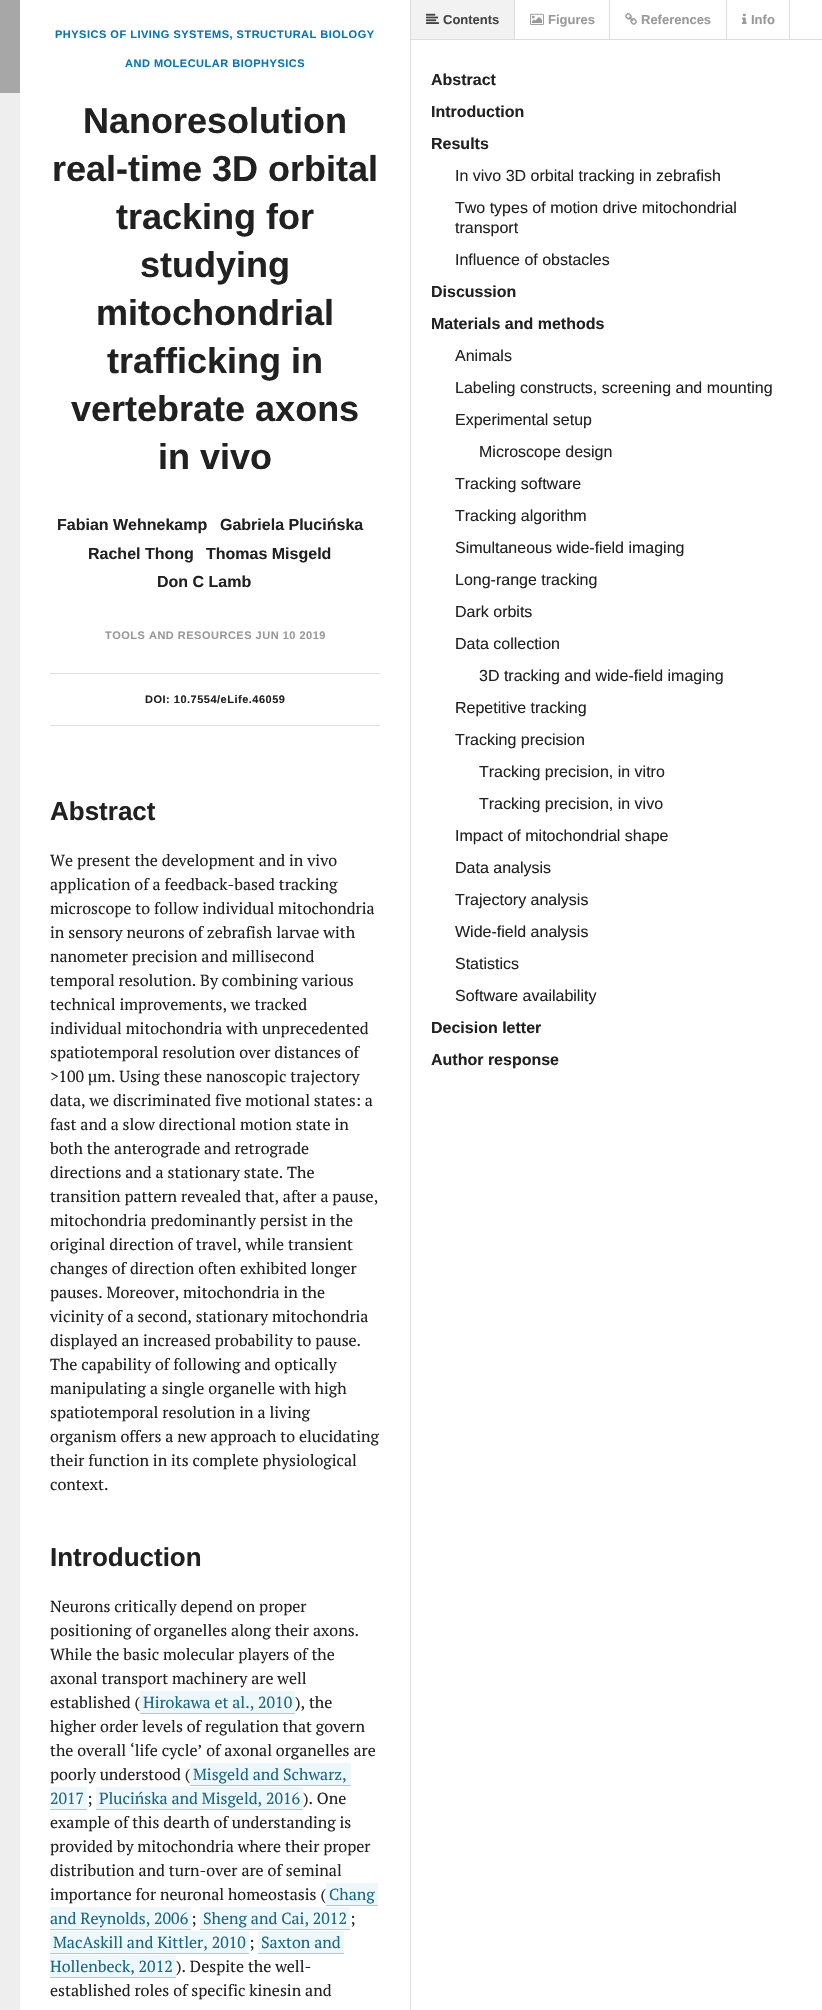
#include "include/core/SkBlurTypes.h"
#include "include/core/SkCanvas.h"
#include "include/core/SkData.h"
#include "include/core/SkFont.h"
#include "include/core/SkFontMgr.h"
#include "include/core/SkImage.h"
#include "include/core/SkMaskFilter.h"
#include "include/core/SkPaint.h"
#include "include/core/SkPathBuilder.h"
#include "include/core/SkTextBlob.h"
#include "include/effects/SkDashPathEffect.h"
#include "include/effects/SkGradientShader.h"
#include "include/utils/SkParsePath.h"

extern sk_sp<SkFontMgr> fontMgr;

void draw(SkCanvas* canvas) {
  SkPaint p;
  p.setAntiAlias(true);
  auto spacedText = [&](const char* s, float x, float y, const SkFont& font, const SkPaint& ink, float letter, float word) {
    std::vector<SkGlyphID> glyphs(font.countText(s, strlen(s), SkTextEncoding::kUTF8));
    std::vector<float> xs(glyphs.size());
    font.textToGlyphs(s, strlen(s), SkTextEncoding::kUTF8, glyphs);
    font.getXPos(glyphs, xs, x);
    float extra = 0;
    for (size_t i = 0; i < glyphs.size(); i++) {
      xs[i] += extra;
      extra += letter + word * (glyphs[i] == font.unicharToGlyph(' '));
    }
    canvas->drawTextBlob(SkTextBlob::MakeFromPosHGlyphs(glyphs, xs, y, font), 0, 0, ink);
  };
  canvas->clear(SK_ColorWHITE);
  p.setColor(SkColorSetRGB(221, 221, 221));
  canvas->drawRect(SkRect::MakeLTRB(410, 0, 411, 2010), p);
  p.setColor(SkColorSetRGB(238, 238, 238));
  canvas->drawRect(SkRect::MakeLTRB(0, 93, 20, 2010), p);
  p.setColor(SkColorSetRGB(167, 167, 167));
  canvas->drawRect(SkRect::MakeLTRB(0, 0, 20, 93), p);
  p.setColor(SkColorSetRGB(224, 224, 224));
  canvas->drawRect(SkRect::MakeLTRB(50, 673, 380, 674), p);
  canvas->drawRect(SkRect::MakeLTRB(50, 725, 380, 726), p);
  p.setColor(SkColorSetRGB(237, 248, 252));
  canvas->drawRect(SkRect::MakeLTRB(140, 1691, 295, 1713), p);
  p.setColor(SkColorSetRGB(147, 212, 238));
  canvas->drawRect(SkRect::MakeLTRB(140, 1713, 295, 1714), p);
  p.setColor(SkColorSetRGB(237, 248, 252));
  canvas->drawRect(SkRect::MakeLTRB(190, 1763, 347, 1785), p);
  p.setColor(SkColorSetRGB(147, 212, 238));
  canvas->drawRect(SkRect::MakeLTRB(190, 1785, 347, 1786), p);
  p.setColor(SkColorSetRGB(237, 248, 252));
  canvas->drawRect(SkRect::MakeLTRB(347, 1763, 351, 1786), p);
  p.setColor(SkColorSetRGB(147, 212, 238));
  canvas->drawRect(SkRect::MakeLTRB(347, 1785, 351, 1786), p);
  p.setColor(SkColorSetRGB(237, 248, 252));
  canvas->drawRect(SkRect::MakeLTRB(50, 1787, 87, 1809), p);
  p.setColor(SkColorSetRGB(147, 212, 238));
  canvas->drawRect(SkRect::MakeLTRB(50, 1809, 87, 1810), p);
  p.setColor(SkColorSetRGB(237, 248, 252));
  canvas->drawRect(SkRect::MakeLTRB(96, 1787, 303, 1809), p);
  p.setColor(SkColorSetRGB(147, 212, 238));
  canvas->drawRect(SkRect::MakeLTRB(96, 1809, 303, 1810), p);
  p.setColor(SkColorSetRGB(237, 248, 252));
  canvas->drawRect(SkRect::MakeLTRB(326, 1883, 375, 1905), p);
  p.setColor(SkColorSetRGB(147, 212, 238));
  canvas->drawRect(SkRect::MakeLTRB(326, 1905, 375, 1906), p);
  p.setColor(SkColorSetRGB(237, 248, 252));
  canvas->drawRect(SkRect::MakeLTRB(375, 1883, 378, 1906), p);
  p.setColor(SkColorSetRGB(147, 212, 238));
  canvas->drawRect(SkRect::MakeLTRB(375, 1905, 378, 1906), p);
  p.setColor(SkColorSetRGB(237, 248, 252));
  canvas->drawRect(SkRect::MakeLTRB(50, 1907, 191, 1929), p);
  p.setColor(SkColorSetRGB(147, 212, 238));
  canvas->drawRect(SkRect::MakeLTRB(50, 1929, 191, 1930), p);
  p.setColor(SkColorSetRGB(237, 248, 252));
  canvas->drawRect(SkRect::MakeLTRB(200, 1907, 350, 1929), p);
  p.setColor(SkColorSetRGB(147, 212, 238));
  canvas->drawRect(SkRect::MakeLTRB(200, 1929, 350, 1930), p);
  p.setColor(SkColorSetRGB(237, 248, 252));
  canvas->drawRect(SkRect::MakeLTRB(50, 1931, 249, 1953), p);
  p.setColor(SkColorSetRGB(147, 212, 238));
  canvas->drawRect(SkRect::MakeLTRB(50, 1953, 249, 1954), p);
  p.setColor(SkColorSetRGB(237, 248, 252));
  canvas->drawRect(SkRect::MakeLTRB(258, 1931, 341, 1953), p);
  p.setColor(SkColorSetRGB(147, 212, 238));
  canvas->drawRect(SkRect::MakeLTRB(258, 1953, 341, 1954), p);
  p.setColor(SkColorSetRGB(237, 248, 252));
  canvas->drawRect(SkRect::MakeLTRB(341, 1931, 344, 1954), p);
  p.setColor(SkColorSetRGB(147, 212, 238));
  canvas->drawRect(SkRect::MakeLTRB(341, 1953, 344, 1954), p);
  p.setColor(SkColorSetRGB(237, 248, 252));
  canvas->drawRect(SkRect::MakeLTRB(50, 1955, 176, 1977), p);
  p.setColor(SkColorSetRGB(147, 212, 238));
  canvas->drawRect(SkRect::MakeLTRB(50, 1977, 176, 1978), p);
  p.setColor(SkColorSetRGB(221, 221, 221));
  canvas->drawRect(SkRect::MakeLTRB(411, 39, 822, 40), p);
  p.setColor(SkColorSetRGB(242, 242, 242));
  canvas->drawRect(SkRect::MakeLTRB(411, 0, 514, 39), p);
  canvas->save();
  canvas->clipRect(SkRect::MakeLTRB(411, 0, 822, 39));
  p.setColor(SkColorSetRGB(221, 221, 221));
  canvas->drawPath(SkPathBuilder().moveTo(515, 0).lineTo(515, 43).lineTo(514, 40).lineTo(514, 0).close().detach(), p);
  canvas->restore();
  canvas->drawImageRect(SkImages::DeferredFromEncodedData(SkData::MakeFromFileName("images/1.png")), SkRect::MakeLTRB(426, 13, 439, 24), SkSamplingOptions());
  canvas->drawRect(SkRect::MakeLTRB(609, 0, 610, 39), p);
  canvas->drawImageRect(SkImages::DeferredFromEncodedData(SkData::MakeFromFileName("images/2.png")), SkRect::MakeLTRB(530, 13, 544, 25), SkSamplingOptions());
  canvas->drawRect(SkRect::MakeLTRB(726, 0, 727, 39), p);
  canvas->drawImageRect(SkImages::DeferredFromEncodedData(SkData::MakeFromFileName("images/3.png")), SkRect::MakeLTRB(625, 13, 637, 25), SkSamplingOptions());
  canvas->drawRect(SkRect::MakeLTRB(789, 0, 790, 39), p);
  canvas->drawImageRect(SkImages::DeferredFromEncodedData(SkData::MakeFromFileName("images/4.png")), SkRect::MakeLTRB(742, 13, 747, 24), SkSamplingOptions());
  SkFont font1(fontMgr->matchFamilyStyle("Liberation Sans", SkFontStyle::Bold()), 11);
  font1.setSubpixel(true);
  p.setColor(SkColorSetRGB(2, 119, 189));
  spacedText("PHYSICS OF LIVING SYSTEMS, STRUCTURAL BIOLOGY", 55, 38, font1, p, 0.5f, 0);
  spacedText("AND MOLECULAR BIOPHYSICS", 125, 67, font1, p, 0.5f, 0);
  SkFont font2(fontMgr->matchFamilyStyle("Liberation Sans", SkFontStyle::Bold()), 36);
  font2.setSubpixel(true);
  p.setColor(SkColorSetRGB(33, 33, 33));
  canvas->drawString("Nanoresolution", 83, 133, font2, p);
  canvas->drawString("real-time 3D orbital", 52, 181, font2, p);
  canvas->drawString("tracking for", 116, 229, font2, p);
  canvas->drawString("studying", 140, 277, font2, p);
  canvas->drawString("mitochondrial", 96, 325, font2, p);
  canvas->drawString("trafficking in", 107, 373, font2, p);
  canvas->drawString("vertebrate axons", 71, 421, font2, p);
  canvas->drawString("in vivo", 158, 469, font2, p);
  SkFont font3(fontMgr->matchFamilyStyle("Liberation Sans", SkFontStyle::Bold()), 16);
  font3.setSubpixel(true);
  canvas->drawString("Fabian Wehnekamp", 57, 530, font3, p);
  canvas->drawString("Gabriela Plucińska", 220, 530, font3, p);
  canvas->drawString("Rachel Thong", 88, 559, font3, p);
  canvas->drawString("Thomas Misgeld", 206, 559, font3, p);
  canvas->drawString("Don C Lamb", 157, 587, font3, p);
  p.setColor(SkColorSetRGB(153, 153, 153));
  spacedText("TOOLS AND RESOURCES JUN 10 2019", 105, 639, font1, p, 0.5f, 0);
  p.setColor(SkColorSetRGB(33, 33, 33));
  spacedText("DOI: 10.7554/eLife.46059", 145, 703, font1, p, 0.5f, 0);
  SkFont font4(fontMgr->matchFamilyStyle("Liberation Sans", SkFontStyle::Bold()), 26);
  font4.setSubpixel(true);
  canvas->drawString("Abstract", 50, 820, font4, p);
  SkFont font5(fontMgr->matchFamilyStyle("PT Serif", SkFontStyle::Normal()), 16);
  font5.setSubpixel(true);
  canvas->drawString("We present the development and in vivo", 50, 866, font5, p);
  canvas->drawString("application of a feedback-based tracking", 50, 890, font5, p);
  canvas->drawString("microscope to follow individual mitochondria", 50, 914, font5, p);
  canvas->drawString("in sensory neurons of zebrafish larvae with", 50, 938, font5, p);
  canvas->drawString("nanometer precision and millisecond", 50, 962, font5, p);
  canvas->drawString("temporal resolution. By combining various", 50, 986, font5, p);
  canvas->drawString("technical improvements, we tracked", 50, 1010, font5, p);
  canvas->drawString("individual mitochondria with unprecedented", 50, 1034, font5, p);
  canvas->drawString("spatiotemporal resolution over distances of", 50, 1058, font5, p);
  canvas->drawString(">100 µm. Using these nanoscopic trajectory", 50, 1082, font5, p);
  canvas->drawString("data, we discriminated five motional states: a", 50, 1106, font5, p);
  canvas->drawString("fast and a slow directional motion state in", 50, 1130, font5, p);
  canvas->drawString("both the anterograde and retrograde", 50, 1154, font5, p);
  canvas->drawString("directions and a stationary state. The", 50, 1178, font5, p);
  canvas->drawString("transition pattern revealed that, after a pause,", 50, 1202, font5, p);
  canvas->drawString("mitochondria predominantly persist in the", 50, 1226, font5, p);
  canvas->drawString("original direction of travel, while transient", 50, 1250, font5, p);
  canvas->drawString("changes of direction often exhibited longer", 50, 1274, font5, p);
  canvas->drawString("pauses. Moreover, mitochondria in the", 50, 1298, font5, p);
  canvas->drawString("vicinity of a second, stationary mitochondria", 50, 1322, font5, p);
  canvas->drawString("displayed an increased probability to pause.", 50, 1346, font5, p);
  canvas->drawString("The capability of following and optically", 50, 1370, font5, p);
  canvas->drawString("manipulating a single organelle with high", 50, 1394, font5, p);
  canvas->drawString("spatiotemporal resolution in a living", 50, 1418, font5, p);
  canvas->drawString("organism offers a new approach to elucidating", 50, 1442, font5, p);
  canvas->drawString("their function in its complete physiological", 50, 1466, font5, p);
  canvas->drawString("context.", 50, 1490, font5, p);
  canvas->drawString("Introduction", 50, 1566, font4, p);
  canvas->drawString("Neurons critically depend on proper", 50, 1612, font5, p);
  canvas->drawString("positioning of organelles along their axons.", 50, 1636, font5, p);
  canvas->drawString("While the basic molecular players of the", 50, 1660, font5, p);
  canvas->drawString("axonal transport machinery are well", 50, 1684, font5, p);
  canvas->drawString("established (", 50, 1708, font5, p);
  p.setColor(SkColorSetRGB(27, 102, 133));
  canvas->drawString("Hirokawa et al., 2010", 143, 1708, font5, p);
  p.setColor(SkColorSetRGB(33, 33, 33));
  canvas->drawString("), the", 295, 1708, font5, p);
  canvas->drawString("higher order levels of regulation that govern", 50, 1732, font5, p);
  canvas->drawString("the overall ‘life cycle’ of axonal organelles are", 50, 1756, font5, p);
  canvas->drawString("poorly understood (", 50, 1780, font5, p);
  p.setColor(SkColorSetRGB(27, 102, 133));
  canvas->drawString("Misgeld and Schwarz,", 193, 1780, font5, p);
  canvas->drawString("2017", 50, 1804, font5, p);
  p.setColor(SkColorSetRGB(33, 33, 33));
  canvas->drawString(";", 87, 1804, font5, p);
  p.setColor(SkColorSetRGB(27, 102, 133));
  canvas->drawString("Plucińska and Misgeld, 2016", 99, 1804, font5, p);
  p.setColor(SkColorSetRGB(33, 33, 33));
  canvas->drawString("). One", 303, 1804, font5, p);
  canvas->drawString("example of this dearth of understanding is", 50, 1828, font5, p);
  canvas->drawString("provided by mitochondria where their proper", 50, 1852, font5, p);
  canvas->drawString("distribution and turn-over are of seminal", 50, 1876, font5, p);
  canvas->drawString("importance for neuronal homeostasis (", 50, 1900, font5, p);
  p.setColor(SkColorSetRGB(27, 102, 133));
  canvas->drawString("Chang", 329, 1900, font5, p);
  canvas->drawString("and Reynolds, 2006", 50, 1924, font5, p);
  p.setColor(SkColorSetRGB(33, 33, 33));
  canvas->drawString(";", 191, 1924, font5, p);
  p.setColor(SkColorSetRGB(27, 102, 133));
  canvas->drawString("Sheng and Cai, 2012", 203, 1924, font5, p);
  p.setColor(SkColorSetRGB(33, 33, 33));
  canvas->drawString(";", 350, 1924, font5, p);
  p.setColor(SkColorSetRGB(27, 102, 133));
  canvas->drawString("MacAskill and Kittler, 2010", 53, 1948, font5, p);
  p.setColor(SkColorSetRGB(33, 33, 33));
  canvas->drawString(";", 249, 1948, font5, p);
  p.setColor(SkColorSetRGB(27, 102, 133));
  canvas->drawString("Saxton and", 261, 1948, font5, p);
  canvas->drawString("Hollenbeck, 2012", 50, 1972, font5, p);
  p.setColor(SkColorSetRGB(33, 33, 33));
  canvas->drawString("). Despite the well-", 176, 1972, font5, p);
  canvas->drawString("established roles of specific kinesin and", 50, 1996, font5, p);
  SkFont font6(fontMgr->matchFamilyStyle("Liberation Sans", SkFontStyle::Bold()), 13);
  font6.setSubpixel(true);
  p.setColor(SkColorSetRGB(68, 68, 68));
  canvas->drawString("Contents", 443, 24, font6, p);
  p.setColor(SkColorSetRGB(153, 153, 153));
  canvas->drawString("Figures", 548, 24, font6, p);
  canvas->drawString("References", 641, 24, font6, p);
  canvas->drawString("Info", 751, 24, font6, p);
  p.setColor(SkColorSetRGB(33, 33, 33));
  canvas->drawString("Abstract", 431, 85, font3, p);
  canvas->drawString("Introduction", 431, 117, font3, p);
  canvas->drawString("Results", 431, 149, font3, p);
  SkFont font7(fontMgr->matchFamilyStyle("Liberation Sans", SkFontStyle::Normal()), 16);
  font7.setSubpixel(true);
  canvas->drawString("In vivo 3D orbital tracking in zebrafish", 455, 181, font7, p);
  canvas->drawString("Two types of motion drive mitochondrial", 455, 213, font7, p);
  canvas->drawString("transport", 455, 233, font7, p);
  canvas->drawString("Influence of obstacles", 455, 265, font7, p);
  canvas->drawString("Discussion", 431, 297, font3, p);
  canvas->drawString("Materials and methods", 431, 329, font3, p);
  canvas->drawString("Animals", 455, 361, font7, p);
  canvas->drawString("Labeling constructs, screening and mounting", 455, 393, font7, p);
  canvas->drawString("Experimental setup", 455, 425, font7, p);
  canvas->drawString("Microscope design", 479, 457, font7, p);
  canvas->drawString("Tracking software", 455, 489, font7, p);
  canvas->drawString("Tracking algorithm", 455, 521, font7, p);
  canvas->drawString("Simultaneous wide-field imaging", 455, 553, font7, p);
  canvas->drawString("Long-range tracking", 455, 585, font7, p);
  canvas->drawString("Dark orbits", 455, 617, font7, p);
  canvas->drawString("Data collection", 455, 649, font7, p);
  canvas->drawString("3D tracking and wide-field imaging", 479, 681, font7, p);
  canvas->drawString("Repetitive tracking", 455, 713, font7, p);
  canvas->drawString("Tracking precision", 455, 745, font7, p);
  canvas->drawString("Tracking precision, in vitro", 479, 777, font7, p);
  canvas->drawString("Tracking precision, in vivo", 479, 809, font7, p);
  canvas->drawString("Impact of mitochondrial shape", 455, 841, font7, p);
  canvas->drawString("Data analysis", 455, 873, font7, p);
  canvas->drawString("Trajectory analysis", 455, 905, font7, p);
  canvas->drawString("Wide-field analysis", 455, 937, font7, p);
  canvas->drawString("Statistics", 455, 969, font7, p);
  canvas->drawString("Software availability", 455, 1001, font7, p);
  canvas->drawString("Decision letter", 431, 1033, font3, p);
  canvas->drawString("Author response", 431, 1065, font3, p);
}
